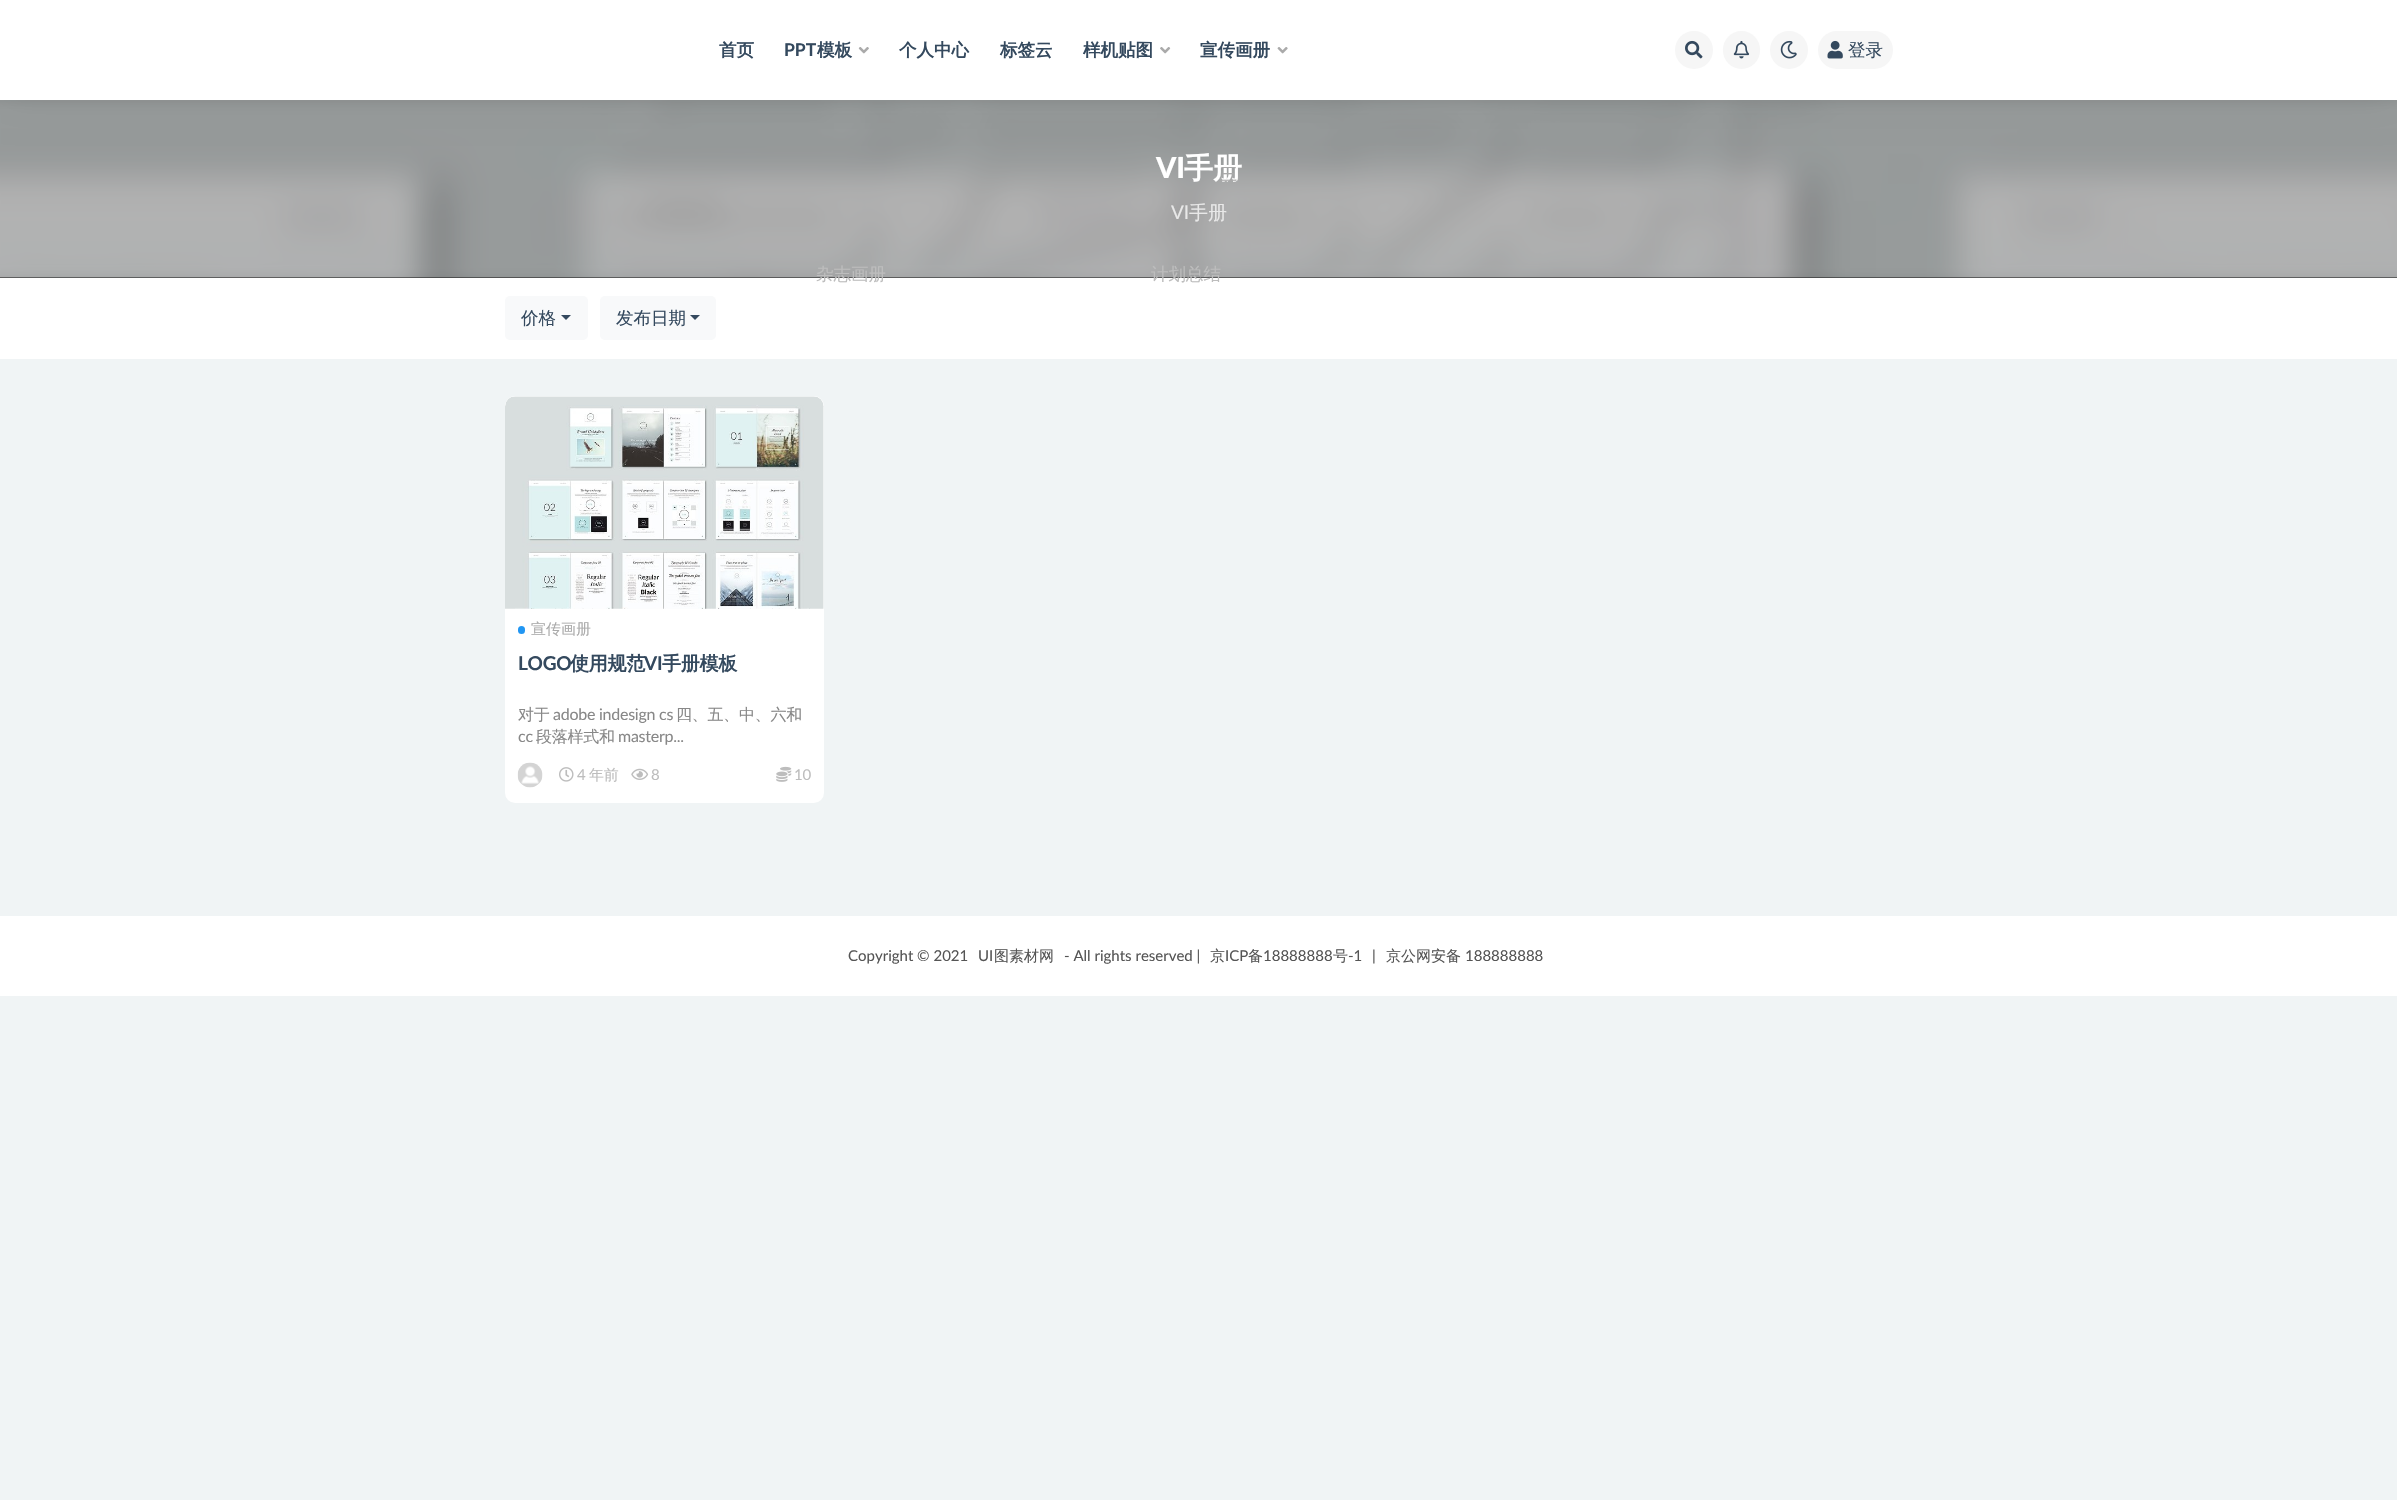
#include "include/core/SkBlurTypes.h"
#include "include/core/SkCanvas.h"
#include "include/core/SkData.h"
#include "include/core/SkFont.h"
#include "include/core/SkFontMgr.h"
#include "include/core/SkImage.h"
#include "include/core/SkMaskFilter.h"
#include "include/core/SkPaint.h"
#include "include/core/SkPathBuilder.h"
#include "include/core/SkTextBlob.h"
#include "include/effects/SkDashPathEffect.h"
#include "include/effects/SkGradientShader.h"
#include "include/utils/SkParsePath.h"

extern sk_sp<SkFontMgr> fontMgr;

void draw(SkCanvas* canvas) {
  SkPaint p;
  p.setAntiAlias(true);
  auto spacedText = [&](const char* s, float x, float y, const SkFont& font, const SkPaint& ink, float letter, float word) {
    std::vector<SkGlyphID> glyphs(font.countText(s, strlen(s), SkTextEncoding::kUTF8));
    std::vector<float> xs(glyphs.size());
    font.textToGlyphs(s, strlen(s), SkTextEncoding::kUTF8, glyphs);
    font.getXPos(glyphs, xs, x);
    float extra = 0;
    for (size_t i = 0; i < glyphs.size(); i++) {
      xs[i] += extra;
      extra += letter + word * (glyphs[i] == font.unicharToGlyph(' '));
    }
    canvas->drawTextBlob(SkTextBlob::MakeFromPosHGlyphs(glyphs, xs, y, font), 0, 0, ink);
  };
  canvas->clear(SkColorSetRGB(240, 244, 245));
  p.setColor(SkColorSetRGB(26, 26, 26));
  canvas->drawRect(SkRect::MakeLTRB(0, 100, 2397, 278), p);
  canvas->drawImageRect(SkImages::DeferredFromEncodedData(SkData::MakeFromFileName("images/8.png")), SkRect::MakeLTRB(0, 100, 2397, 278), SkSamplingOptions());
  p.setColor(SkColorSetARGB(18, 0, 0, 0));
  p.setMaskFilter(SkMaskFilter::MakeBlur(kNormal_SkBlurStyle, 19));
  canvas->drawRect(SkRect::MakeLTRB(0, 0, 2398, 100), p);
  p.setMaskFilter(nullptr);
  p.setColor(SkColorSetARGB(77, 0, 0, 0));
  p.setMaskFilter(SkMaskFilter::MakeBlur(kNormal_SkBlurStyle, 12.5f));
  canvas->drawRect(SkRect::MakeLTRB(-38, 74, 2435, 304), p);
  p.setMaskFilter(nullptr);
  p.setColor(SK_ColorWHITE);
  canvas->drawRect(SkRect::MakeLTRB(0, 0, 2397, 100), p);
  canvas->drawImageRect(SkImages::DeferredFromEncodedData(SkData::MakeFromFileName("images/1.png")), SkRect::MakeLTRB(858, 47, 869, 54), SkSamplingOptions());
  canvas->drawImageRect(SkImages::DeferredFromEncodedData(SkData::MakeFromFileName("images/2.png")), SkRect::MakeLTRB(1160, 47, 1171, 54), SkSamplingOptions());
  canvas->drawImageRect(SkImages::DeferredFromEncodedData(SkData::MakeFromFileName("images/3.png")), SkRect::MakeLTRB(1277, 47, 1288, 54), SkSamplingOptions());
  p.setColor(SkColorSetRGB(246, 246, 246));
  canvas->drawCircle(1694, 50, 19, p);
  canvas->drawImageRect(SkImages::DeferredFromEncodedData(SkData::MakeFromFileName("images/4.png")), SkRect::MakeLTRB(1685, 40, 1703, 59), SkSamplingOptions());
  canvas->drawRoundRect(SkRect::MakeLTRB(1723, 31, 1760, 69), 18.5f, 18.5f, p);
  canvas->drawImageRect(SkImages::DeferredFromEncodedData(SkData::MakeFromFileName("images/5.png")), SkRect::MakeLTRB(1733, 41, 1750, 59), SkSamplingOptions());
  canvas->drawCircle(1789, 50, 19, p);
  canvas->drawImageRect(SkImages::DeferredFromEncodedData(SkData::MakeFromFileName("images/6.png")), SkRect::MakeLTRB(1780, 40, 1797, 59), SkSamplingOptions());
  canvas->drawRoundRect(SkRect::MakeLTRB(1818, 31, 1893, 69), 19, 19, p);
  canvas->drawImageRect(SkImages::DeferredFromEncodedData(SkData::MakeFromFileName("images/7.png")), SkRect::MakeLTRB(1827, 40, 1843, 59), SkSamplingOptions());
  p.setColor(SK_ColorWHITE);
  canvas->drawRect(SkRect::MakeLTRB(0, 278, 2397, 359), p);
  p.setColor(SkColorSetRGB(248, 249, 250));
  canvas->drawRoundRect(SkRect::MakeLTRB(505, 296, 588, 340), 5, 5, p);
  p.setColor(SkColorSetRGB(52, 73, 94));
  canvas->drawPath(SkPathBuilder().moveTo(561, 315).lineTo(571, 315).lineTo(566, 320).close().detach(), p);
  p.setColor(SkColorSetRGB(248, 249, 250));
  canvas->drawRoundRect(SkRect::MakeLTRB(600, 296, 716, 340), 5, 5, p);
  p.setColor(SkColorSetRGB(52, 73, 94));
  canvas->drawPath(SkPathBuilder().moveTo(690, 315).lineTo(700, 315).lineTo(695, 320).close().detach(), p);
  p.setColor(SK_ColorWHITE);
  canvas->drawRoundRect(SkRect::MakeLTRB(505, 396, 824, 803), 10, 10, p);
  canvas->drawImageRect(SkImages::DeferredFromEncodedData(SkData::MakeFromFileName("images/9.png")), SkRect::MakeLTRB(505, 396, 824, 609), SkSamplingOptions());
  p.setColor(SkColorSetRGB(33, 150, 243));
  canvas->drawRoundRect(SkRect::MakeLTRB(518, 626, 525, 634), 3.5f, 3.5f, p);
  canvas->drawImageRect(SkImages::DeferredFromEncodedData(SkData::MakeFromFileName("images/10.png")), SkRect::MakeLTRB(517, 762, 543, 788), SkSamplingOptions());
  canvas->drawImageRect(SkImages::DeferredFromEncodedData(SkData::MakeFromFileName("images/11.png")), SkRect::MakeLTRB(559, 767, 574, 782), SkSamplingOptions());
  canvas->drawImageRect(SkImages::DeferredFromEncodedData(SkData::MakeFromFileName("images/12.png")), SkRect::MakeLTRB(631, 768, 649, 780), SkSamplingOptions());
  canvas->drawImageRect(SkImages::DeferredFromEncodedData(SkData::MakeFromFileName("images/13.png")), SkRect::MakeLTRB(776, 766, 792, 782), SkSamplingOptions());
  p.setColor(SK_ColorWHITE);
  canvas->drawRect(SkRect::MakeLTRB(0, 916, 2397, 996), p);
  SkFont font1(fontMgr->matchFamilyStyle("WenQuanYi Zen Hei", SkFontStyle::Bold()), 17.5f);
  font1.setSubpixel(true);
  p.setColor(SkColorSetRGB(52, 73, 94));
  canvas->drawString("首页", 719, 56, font1, p);
  SkFont font2(fontMgr->matchFamilyStyle("Lato", SkFontStyle::Bold()), 17.5f);
  font2.setSubpixel(true);
  canvas->drawString("PPT", 784, 56, font2, p);
  canvas->drawString("模板", 817, 56, font1, p);
  canvas->drawString("个人中心", 899, 56, font1, p);
  canvas->drawString("标签云", 1000, 56, font1, p);
  canvas->drawString("样机贴图", 1083, 56, font1, p);
  canvas->drawString("宣传画册", 1200, 56, font1, p);
  SkFont font3(fontMgr->matchFamilyStyle("WenQuanYi Zen Hei", SkFontStyle(500, SkFontStyle::kNormal_Width, SkFontStyle::kUpright_Slant)), 17.5f);
  font3.setSubpixel(true);
  canvas->drawString("登录", 1848, 56, font3, p);
  SkFont font4(fontMgr->matchFamilyStyle("Lato", SkFontStyle(900, SkFontStyle::kNormal_Width, SkFontStyle::kUpright_Slant)), 29);
  font4.setSubpixel(true);
  p.setColor(SK_ColorWHITE);
  canvas->drawString("VI", 1156, 178, font4, p);
  SkFont font5(fontMgr->matchFamilyStyle("WenQuanYi Zen Hei", SkFontStyle::Bold()), 29);
  font5.setSubpixel(true);
  canvas->drawString("手册", 1184, 178, font5, p);
  SkFont font6(fontMgr->matchFamilyStyle("Lato", SkFontStyle::Normal()), 19);
  font6.setSubpixel(true);
  p.setColor(SkColorSetRGB(232, 232, 232));
  canvas->drawString("VI", 1171, 219, font6, p);
  SkFont font7(fontMgr->matchFamilyStyle("WenQuanYi Zen Hei", SkFontStyle(500, SkFontStyle::kNormal_Width, SkFontStyle::kUpright_Slant)), 19);
  font7.setSubpixel(true);
  canvas->drawString("手册", 1189, 219, font7, p);
  p.setColor(SkColorSetRGB(52, 73, 94));
  canvas->drawString("价格", 521, 324, font3, p);
  canvas->drawString("发布日期", 616, 324, font3, p);
  SkFont font8(fontMgr->matchFamilyStyle("WenQuanYi Zen Hei", SkFontStyle(500, SkFontStyle::kNormal_Width, SkFontStyle::kUpright_Slant)), 15);
  font8.setSubpixel(true);
  p.setColor(SkColorSetRGB(170, 170, 170));
  canvas->drawString("宣传画册", 531, 634, font8, p);
  SkFont font9(fontMgr->matchFamilyStyle("Lato", SkFontStyle::Bold()), 19);
  font9.setSubpixel(true);
  p.setColor(SkColorSetRGB(52, 73, 94));
  spacedText("LOGO", 518, 670, font9, p, -0.25f, 0);
  SkFont font10(fontMgr->matchFamilyStyle("WenQuanYi Zen Hei", SkFontStyle::Bold()), 19);
  font10.setSubpixel(true);
  spacedText("使用规范", 570, 670, font10, p, -0.25f, 0);
  spacedText("VI", 644, 670, font9, p, -0.25f, 0);
  spacedText("手册模板", 662, 670, font10, p, -0.25f, 0);
  SkFont font11(fontMgr->matchFamilyStyle("WenQuanYi Zen Hei", SkFontStyle(500, SkFontStyle::kNormal_Width, SkFontStyle::kUpright_Slant)), 16);
  font11.setSubpixel(true);
  p.setColor(SkColorSetRGB(136, 136, 136));
  spacedText("对于", 518, 720, font11, p, -0.25f, 0);
  SkFont font12(fontMgr->matchFamilyStyle("Lato", SkFontStyle::Normal()), 16);
  font12.setSubpixel(true);
  spacedText("adobe indesign cs", 553, 720, font12, p, -0.25f, 0);
  spacedText("四、五、中、六和", 676, 720, font11, p, -0.25f, 0);
  spacedText("cc", 518, 742, font12, p, -0.25f, 0);
  spacedText("段落样式和", 536, 742, font11, p, -0.25f, 0);
  spacedText("masterp...", 618, 742, font12, p, -0.25f, 0);
  SkFont font13(fontMgr->matchFamilyStyle("Lato", SkFontStyle::Normal()), 15);
  font13.setSubpixel(true);
  p.setColor(SkColorSetRGB(189, 189, 189));
  spacedText("4", 577, 780, font13, p, -0.25f, 0);
  spacedText("年前", 589, 780, font8, p, -0.25f, 0);
  spacedText("8", 651, 780, font13, p, -0.25f, 0);
  spacedText("10", 794, 780, font13, p, -0.25f, 0);
  p.setColor(SkColorSetRGB(85, 85, 85));
  canvas->drawString("Copyright © 2021", 848, 961, font13, p);
  canvas->drawString("UI", 978, 961, font13, p);
  canvas->drawString("图素材网", 994, 961, font8, p);
  canvas->drawString("- All rights reserved |", 1064, 961, font13, p);
  canvas->drawString("京", 1210, 961, font8, p);
  canvas->drawString("ICP", 1225, 961, font13, p);
  canvas->drawString("备", 1248, 961, font8, p);
  canvas->drawString("18888888", 1263, 961, font13, p);
  canvas->drawString("号", 1333, 961, font8, p);
  canvas->drawString("-1", 1348, 961, font13, p);
  canvas->drawString("|", 1372, 961, font13, p);
  canvas->drawString("京公网安备", 1386, 961, font8, p);
  canvas->drawString("188888888", 1465, 961, font13, p);
  p.setColor(SkColorSetRGB(170, 170, 170));
  canvas->drawString("三", 1220, 180, font3, p);
  p.setColor(SkColorSetRGB(189, 189, 189));
  canvas->drawString("杂志画册", 816, 280, font3, p);
  canvas->drawString("计划总结", 1151, 280, font3, p);
}
